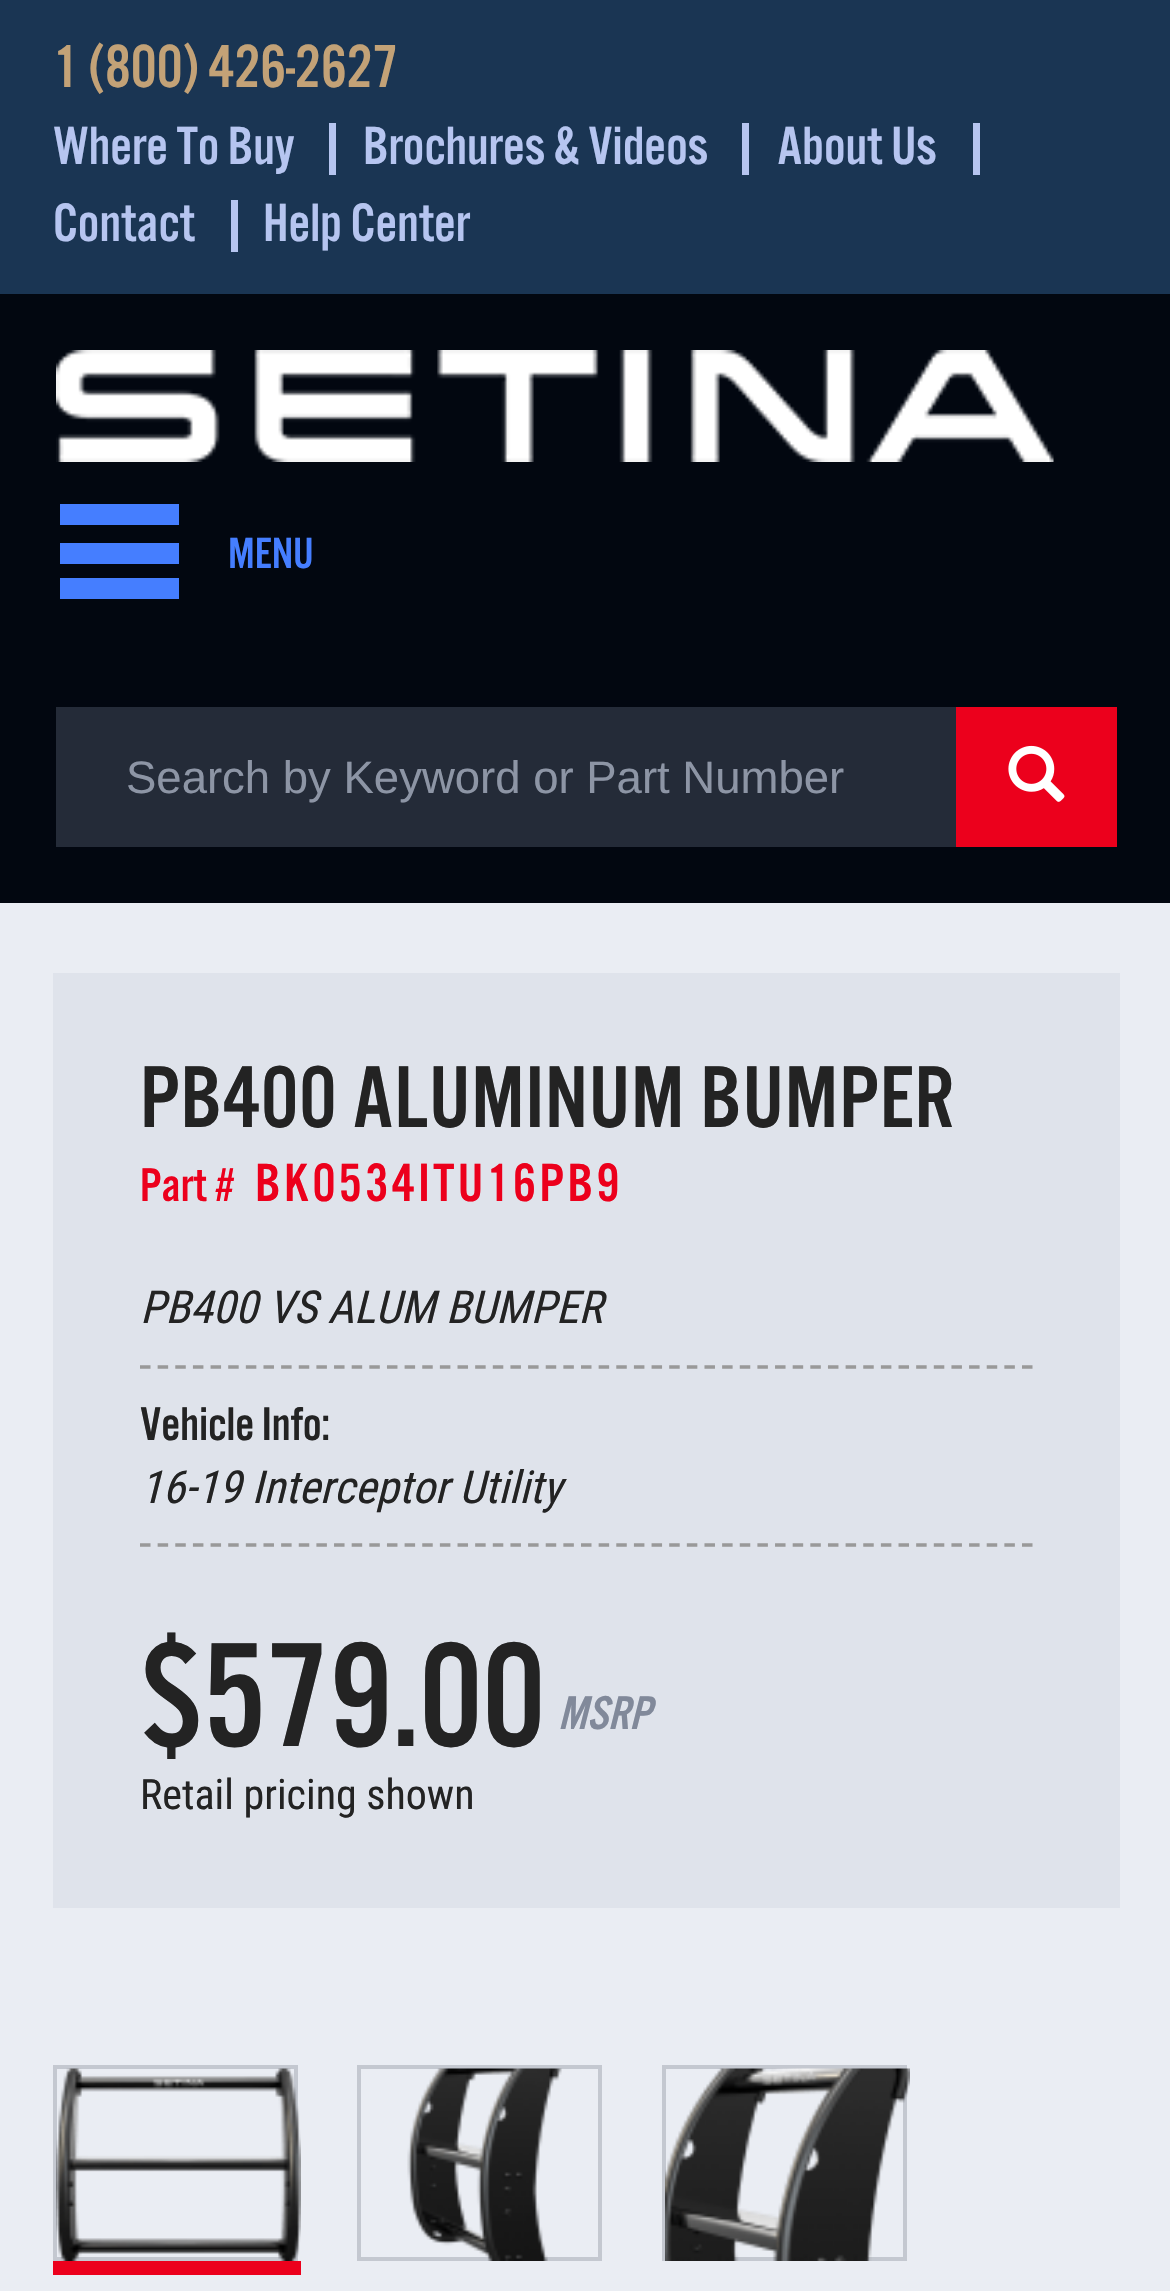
#include "include/core/SkBlurTypes.h"
#include "include/core/SkCanvas.h"
#include "include/core/SkData.h"
#include "include/core/SkFont.h"
#include "include/core/SkFontMgr.h"
#include "include/core/SkImage.h"
#include "include/core/SkMaskFilter.h"
#include "include/core/SkPaint.h"
#include "include/core/SkPathBuilder.h"
#include "include/core/SkTextBlob.h"
#include "include/effects/SkDashPathEffect.h"
#include "include/effects/SkGradientShader.h"
#include "include/utils/SkParsePath.h"

extern sk_sp<SkFontMgr> fontMgr;

void draw(SkCanvas* canvas) {
  SkPaint p;
  p.setAntiAlias(true);
  auto spacedText = [&](const char* s, float x, float y, const SkFont& font, const SkPaint& ink, float letter, float word) {
    std::vector<SkGlyphID> glyphs(font.countText(s, strlen(s), SkTextEncoding::kUTF8));
    std::vector<float> xs(glyphs.size());
    font.textToGlyphs(s, strlen(s), SkTextEncoding::kUTF8, glyphs);
    font.getXPos(glyphs, xs, x);
    float extra = 0;
    for (size_t i = 0; i < glyphs.size(); i++) {
      xs[i] += extra;
      extra += letter + word * (glyphs[i] == font.unicharToGlyph(' '));
    }
    canvas->drawTextBlob(SkTextBlob::MakeFromPosHGlyphs(glyphs, xs, y, font), 0, 0, ink);
  };
  canvas->clear(SkColorSetRGB(26, 53, 83));
  p.setColor(SkColorSetRGB(182, 197, 240));
  canvas->drawRect(SkRect::MakeLTRB(329, 123, 336, 175), p);
  canvas->drawRect(SkRect::MakeLTRB(742, 123, 749, 175), p);
  canvas->drawRect(SkRect::MakeLTRB(973, 123, 980, 175), p);
  canvas->drawRect(SkRect::MakeLTRB(231, 200, 238, 252), p);
  p.setColor(SkColorSetRGB(2, 7, 16));
  canvas->drawRect(SkRect::MakeLTRB(0, 294, 1170, 903), p);
  canvas->drawImageRect(SkImages::DeferredFromEncodedData(SkData::MakeFromFileName("images/1.png")), SkRect::MakeLTRB(56, 350, 1054, 462), SkSamplingOptions());
  p.setColor(SkColorSetRGB(69, 126, 255));
  canvas->drawRect(SkRect::MakeLTRB(60, 504, 179, 525), p);
  canvas->drawRect(SkRect::MakeLTRB(60, 543, 179, 564), p);
  canvas->drawRect(SkRect::MakeLTRB(60, 578, 179, 599), p);
  p.setColor(SkColorSetRGB(36, 43, 56));
  canvas->drawRect(SkRect::MakeLTRB(56, 707, 956, 847), p);
  p.setColor(SkColorSetRGB(236, 0, 28));
  canvas->drawRect(SkRect::MakeLTRB(956, 707, 1117, 847), p);
  canvas->drawImageRect(SkImages::DeferredFromEncodedData(SkData::MakeFromFileName("images/2.png")), SkRect::MakeLTRB(1008, 745, 1065, 802), SkSamplingOptions());
  p.setColor(SkColorSetRGB(234, 237, 243));
  canvas->drawRect(SkRect::MakeLTRB(0, 903, 1170, 2291), p);
  p.setColor(SkColorSetRGB(223, 227, 235));
  canvas->drawRect(SkRect::MakeLTRB(53, 973, 1120, 1908), p);
  p.setStyle(SkPaint::kStroke_Style);
  p.setStrokeWidth(3.5f);
  p.setColor(SkColorSetRGB(153, 153, 153));
  p.setPathEffect(SkDashPathEffect::Make({{10.5f, 7.14f}}, 0));
  canvas->drawPath(SkPathBuilder().moveTo(140, 1367).lineTo(1032.5f, 1367).detach(), p);
  p.setPathEffect(nullptr);
  p.setPathEffect(SkDashPathEffect::Make({{10.5f, 7.14f}}, 0));
  canvas->drawPath(SkPathBuilder().moveTo(140, 1545).lineTo(1032.5f, 1545).detach(), p);
  p.setPathEffect(nullptr);
  p.setStrokeWidth(4);
  p.setColor(SkColorSetRGB(196, 200, 208));
  canvas->drawRect(SkRect::MakeLTRB(55, 2067, 296, 2259), p);
  canvas->drawImageRect(SkImages::DeferredFromEncodedData(SkData::MakeFromFileName("images/3.png")), SkRect::MakeLTRB(56, 2068, 301, 2261), SkSamplingOptions());
  p.setStyle(SkPaint::kFill_Style);
  p.setColor(SkColorSetRGB(236, 0, 28));
  canvas->drawRect(SkRect::MakeLTRB(53, 2261, 301, 2275), p);
  p.setStyle(SkPaint::kStroke_Style);
  p.setColor(SkColorSetRGB(196, 200, 208));
  canvas->drawRect(SkRect::MakeLTRB(359, 2067, 600, 2259), p);
  canvas->drawImageRect(SkImages::DeferredFromEncodedData(SkData::MakeFromFileName("images/4.png")), SkRect::MakeLTRB(407, 2068, 562, 2261), SkSamplingOptions());
  canvas->drawRect(SkRect::MakeLTRB(664, 2067, 905, 2259), p);
  canvas->drawImageRect(SkImages::DeferredFromEncodedData(SkData::MakeFromFileName("images/5.png")), SkRect::MakeLTRB(665, 2068, 910, 2261), SkSamplingOptions());
  SkFont font1(fontMgr->matchFamilyStyle("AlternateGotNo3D", SkFontStyle::Normal()), 63);
  font1.setSubpixel(true);
  p.setStyle(SkPaint::kFill_Style);
  p.setColor(SkColorSetRGB(195, 162, 119));
  canvas->drawString("1 (800) 426-2627", 53, 87, font1, p);
  SkFont font2(fontMgr->matchFamilyStyle("AlternateGotNo3D", SkFontStyle::Normal()), 56);
  font2.setSubpixel(true);
  p.setColor(SkColorSetRGB(182, 197, 240));
  canvas->drawString("Where To Buy", 53, 164, font2, p);
  canvas->drawString("Brochures & Videos", 363, 164, font2, p);
  canvas->drawString("About Us", 777, 164, font2, p);
  canvas->drawString("Contact", 53, 241, font2, p);
  canvas->drawString("Help Center", 263, 241, font2, p);
  SkFont font3(fontMgr->matchFamilyStyle("AlternateGotNo3D", SkFontStyle::Normal()), 45.5f);
  font3.setSubpixel(true);
  p.setColor(SkColorSetRGB(69, 126, 255));
  canvas->drawString("MENU", 228, 568, font3, p);
  SkFont font4(fontMgr->matchFamilyStyle("Liberation Sans", SkFontStyle::Normal()), 45.5f);
  font4.setSubpixel(true);
  p.setColor(SkColorSetRGB(141, 149, 165));
  canvas->drawString("Search by Keyword or Part Number", 126, 793, font4, p);
  SkFont font5(fontMgr->matchFamilyStyle("AlternateGotNo3D", SkFontStyle::Normal()), 91);
  font5.setSubpixel(true);
  p.setColor(SkColorSetRGB(35, 35, 35));
  spacedText("PB400 ALUMINUM BUMPER", 140, 1127, font5, p, 0.9f, 0);
  SkFont font6(fontMgr->matchFamilyStyle("AlternateGotNo3D", SkFontStyle::Normal()), 49);
  font6.setSubpixel(true);
  p.setColor(SkColorSetRGB(236, 0, 28));
  canvas->drawString("Part #", 140, 1201, font6, p);
  spacedText("BK0534ITU16PB9", 255, 1201, font2, p, 3.5f, 0);
  SkFont font7(fontMgr->matchFamilyStyle("Roboto Condensed", SkFontStyle::Italic()), 45.5f);
  font7.setSubpixel(true);
  p.setColor(SkColorSetRGB(35, 35, 35));
  canvas->drawString("PB400 VS ALUM BUMPER", 140, 1323, font7, p);
  canvas->drawString("Vehicle Info:", 140, 1440, font6, p);
  canvas->drawString("16-19 Interceptor Utility", 140, 1503, font7, p);
  SkFont font8(fontMgr->matchFamilyStyle("AlternateGotNo3D", SkFontStyle::Normal()), 154);
  font8.setSubpixel(true);
  canvas->drawString("$579.00", 140, 1746, font8, p);
  SkFont font9(fontMgr->matchFamilyStyle("AlternateGotNo3D", SkFontStyle::Italic()), 49);
  font9.setSubpixel(true);
  p.setColor(SkColorSetRGB(129, 137, 154));
  canvas->drawString("MSRP", 558, 1729, font9, p);
  SkFont font10(fontMgr->matchFamilyStyle("Roboto Condensed", SkFontStyle::Normal()), 42);
  font10.setSubpixel(true);
  p.setColor(SkColorSetRGB(35, 35, 35));
  canvas->drawString("Retail pricing shown", 140, 1809, font10, p);
}
